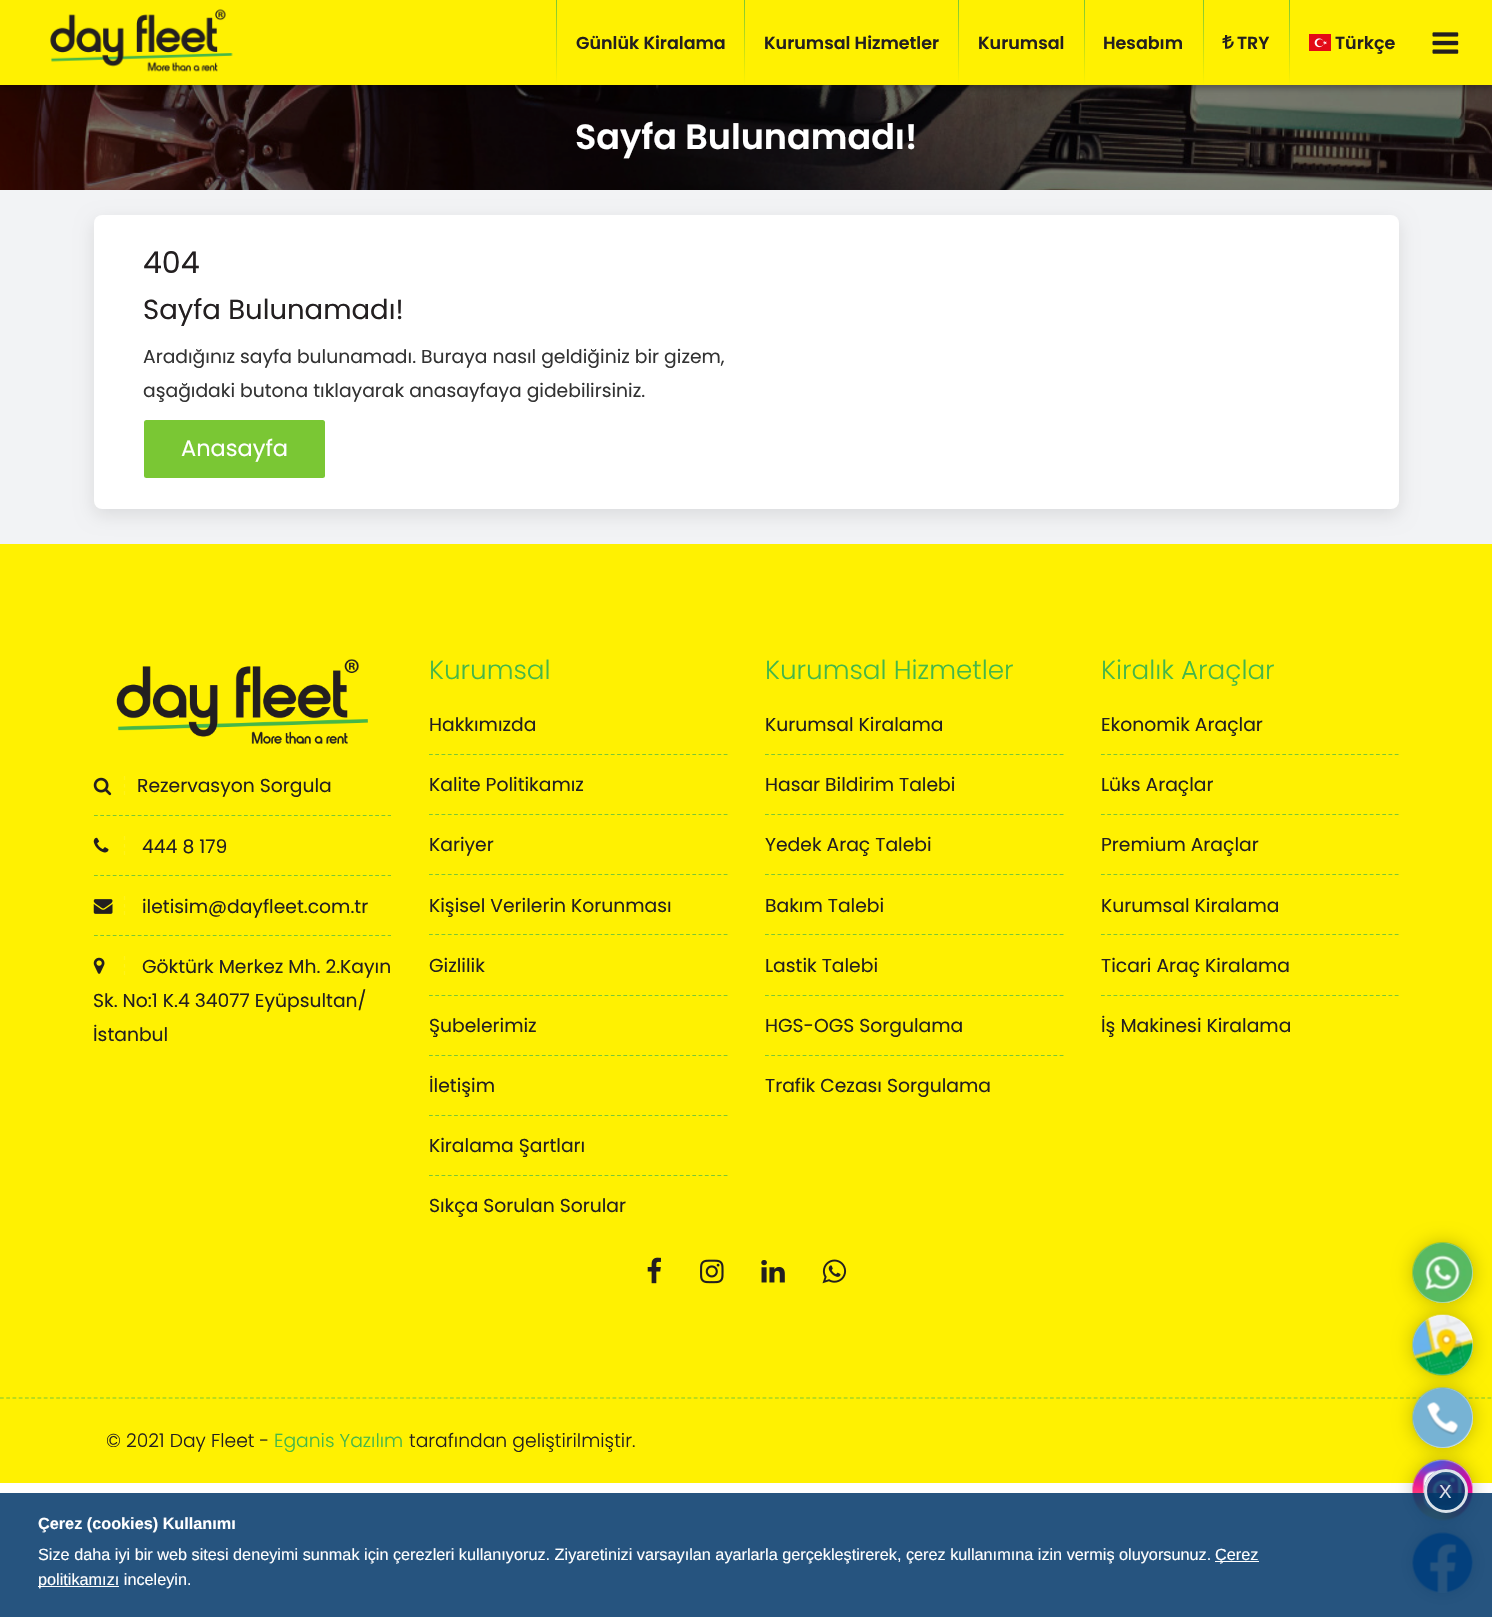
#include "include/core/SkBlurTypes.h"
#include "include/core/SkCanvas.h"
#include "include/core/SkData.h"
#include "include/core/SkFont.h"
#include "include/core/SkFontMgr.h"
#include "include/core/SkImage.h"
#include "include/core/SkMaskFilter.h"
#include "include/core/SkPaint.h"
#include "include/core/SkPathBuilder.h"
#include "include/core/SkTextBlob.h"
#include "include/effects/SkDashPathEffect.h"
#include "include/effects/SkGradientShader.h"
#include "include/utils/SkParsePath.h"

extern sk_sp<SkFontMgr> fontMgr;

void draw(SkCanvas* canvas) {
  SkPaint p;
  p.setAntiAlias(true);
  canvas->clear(SK_ColorWHITE);
  canvas->drawImageRect(SkImages::DeferredFromEncodedData(SkData::MakeFromFileName("images/5.png")), SkRect::MakeLTRB(0, 85, 1492, 190), SkSamplingOptions());
  p.setColor(SkColorSetARGB(77, 0, 0, 0));
  p.setMaskFilter(SkMaskFilter::MakeBlur(kNormal_SkBlurStyle, 3));
  canvas->drawRect(SkRect::MakeLTRB(0, 3, 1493, 88), p);
  p.setMaskFilter(nullptr);
  p.setColor(SkColorSetRGB(255, 241, 1));
  canvas->drawRect(SkRect::MakeLTRB(0, 0, 1492, 85), p);
  canvas->drawImageRect(SkImages::DeferredFromEncodedData(SkData::MakeFromFileName("images/1.png")), SkRect::MakeLTRB(50, 9, 233, 72), SkSamplingOptions());
  {
    const SkColor colors[] = {SkColorSetRGB(122, 199, 52), SkColorSetRGB(255, 241, 1)};
    const float stops[] = {0, 1};
    const SkPoint ends[] = {{557, 0}, {557, 85}};
    p.setShader(SkGradientShader::MakeLinear(ends, colors, stops, 2, SkTileMode::kClamp));
    p.setAlpha(255);
  }
  canvas->drawRect(SkRect::MakeLTRB(556, 0, 557, 85), p);
  {
    const SkColor colors[] = {SkColorSetRGB(122, 199, 52), SkColorSetRGB(255, 241, 1)};
    const float stops[] = {0, 1};
    const SkPoint ends[] = {{744, 0}, {744, 85}};
    p.setShader(SkGradientShader::MakeLinear(ends, colors, stops, 2, SkTileMode::kClamp));
    p.setAlpha(255);
  }
  canvas->drawRect(SkRect::MakeLTRB(744, 0, 745, 85), p);
  {
    const SkColor colors[] = {SkColorSetRGB(122, 199, 52), SkColorSetRGB(255, 241, 1)};
    const float stops[] = {0, 1};
    const SkPoint ends[] = {{958, 0}, {958, 85}};
    p.setShader(SkGradientShader::MakeLinear(ends, colors, stops, 2, SkTileMode::kClamp));
    p.setAlpha(255);
  }
  canvas->drawRect(SkRect::MakeLTRB(958, 0, 959, 85), p);
  {
    const SkColor colors[] = {SkColorSetRGB(122, 199, 52), SkColorSetRGB(255, 241, 1)};
    const float stops[] = {0, 1};
    const SkPoint ends[] = {{1084, 0}, {1084, 85}};
    p.setShader(SkGradientShader::MakeLinear(ends, colors, stops, 2, SkTileMode::kClamp));
    p.setAlpha(255);
  }
  canvas->drawRect(SkRect::MakeLTRB(1084, 0, 1085, 85), p);
  {
    const SkColor colors[] = {SkColorSetRGB(122, 199, 52), SkColorSetRGB(255, 241, 1)};
    const float stops[] = {0, 1};
    const SkPoint ends[] = {{1203, 0}, {1203, 85}};
    p.setShader(SkGradientShader::MakeLinear(ends, colors, stops, 2, SkTileMode::kClamp));
    p.setAlpha(255);
  }
  canvas->drawRect(SkRect::MakeLTRB(1203, 0, 1204, 85), p);
  canvas->drawImageRect(SkImages::DeferredFromEncodedData(SkData::MakeFromFileName("images/2.png")), SkRect::MakeLTRB(1222, 35, 1234, 49), SkSamplingOptions());
  {
    const SkColor colors[] = {SkColorSetRGB(122, 199, 52), SkColorSetRGB(255, 241, 1)};
    const float stops[] = {0, 1};
    const SkPoint ends[] = {{1289, 0}, {1289, 85}};
    p.setShader(SkGradientShader::MakeLinear(ends, colors, stops, 2, SkTileMode::kClamp));
    p.setAlpha(255);
  }
  canvas->drawRect(SkRect::MakeLTRB(1289, 0, 1290, 85), p);
  canvas->drawImageRect(SkImages::DeferredFromEncodedData(SkData::MakeFromFileName("images/3.png")), SkRect::MakeLTRB(1309, 34, 1331, 51), SkSamplingOptions());
  canvas->drawImageRect(SkImages::DeferredFromEncodedData(SkData::MakeFromFileName("images/4.png")), SkRect::MakeLTRB(1432, 32, 1459, 54), SkSamplingOptions());
  p.setShader(nullptr);
  p.setColor(SkColorSetRGB(242, 243, 245));
  canvas->drawRect(SkRect::MakeLTRB(0, 190, 1492, 544), p);
  p.setColor(SkColorSetARGB(26, 0, 0, 0));
  p.setMaskFilter(SkMaskFilter::MakeBlur(kNormal_SkBlurStyle, 9));
  canvas->drawRoundRect(SkRect::MakeLTRB(94, 221, 1399, 515), 8, 8, p);
  p.setMaskFilter(nullptr);
  p.setColor(SK_ColorWHITE);
  canvas->drawRoundRect(SkRect::MakeLTRB(94, 215, 1399, 509), 8, 8, p);
  p.setColor(SkColorSetRGB(122, 199, 52));
  canvas->drawRoundRect(SkRect::MakeLTRB(144, 420, 325, 478), 2.5f, 2.5f, p);
  p.setColor(SkColorSetRGB(255, 241, 1));
  canvas->drawRect(SkRect::MakeLTRB(0, 544, 1492, 1483), p);
  canvas->drawImageRect(SkImages::DeferredFromEncodedData(SkData::MakeFromFileName("images/6.png")), SkRect::MakeLTRB(116, 659, 368, 744), SkSamplingOptions());
  p.setStyle(SkPaint::kStroke_Style);
  p.setStrokeWidth(1.2f);
  p.setColor(SkColorSetRGB(122, 199, 52));
  p.setPathEffect(SkDashPathEffect::Make({{3.75f, 2.5f}}, 0));
  canvas->drawPath(SkPathBuilder().moveTo(94, 815.5f).lineTo(391, 815.5f).detach(), p);
  p.setPathEffect(nullptr);
  p.setColor(SkColorSetRGB(255, 242, 26));
  canvas->drawPath(SkPathBuilder().moveTo(124.5f, 776).lineTo(124.5f, 780).moveTo(124.5f, 784).lineTo(124.5f, 787.5f).moveTo(124.5f, 791).lineTo(124.5f, 795).detach(), p);
  canvas->drawImageRect(SkImages::DeferredFromEncodedData(SkData::MakeFromFileName("images/7.png")), SkRect::MakeLTRB(93, 777, 112, 796), SkSamplingOptions());
  p.setColor(SkColorSetRGB(122, 199, 52));
  p.setPathEffect(SkDashPathEffect::Make({{3.75f, 2.5f}}, 0));
  canvas->drawPath(SkPathBuilder().moveTo(94, 875.5f).lineTo(391, 875.5f).detach(), p);
  p.setPathEffect(nullptr);
  p.setColor(SkColorSetRGB(255, 242, 26));
  canvas->drawPath(SkPathBuilder().moveTo(124.5f, 836).lineTo(124.5f, 840).moveTo(124.5f, 844).lineTo(124.5f, 847.5f).moveTo(124.5f, 851).lineTo(124.5f, 855).detach(), p);
  canvas->drawImageRect(SkImages::DeferredFromEncodedData(SkData::MakeFromFileName("images/8.png")), SkRect::MakeLTRB(93, 837, 109, 853), SkSamplingOptions());
  p.setColor(SkColorSetRGB(122, 199, 52));
  p.setPathEffect(SkDashPathEffect::Make({{3.75f, 2.5f}}, 0));
  canvas->drawPath(SkPathBuilder().moveTo(94, 935.5f).lineTo(391, 935.5f).detach(), p);
  p.setPathEffect(nullptr);
  p.setColor(SkColorSetRGB(255, 242, 26));
  canvas->drawPath(SkPathBuilder().moveTo(124.5f, 896).lineTo(124.5f, 900).moveTo(124.5f, 904).lineTo(124.5f, 907.5f).moveTo(124.5f, 911).lineTo(124.5f, 915).detach(), p);
  canvas->drawImageRect(SkImages::DeferredFromEncodedData(SkData::MakeFromFileName("images/9.png")), SkRect::MakeLTRB(93, 899, 113, 914), SkSamplingOptions());
  canvas->drawPath(SkPathBuilder().moveTo(124.5f, 956).lineTo(124.5f, 960).moveTo(124.5f, 964).lineTo(124.5f, 967.5f).moveTo(124.5f, 971).lineTo(124.5f, 975).detach(), p);
  canvas->drawImageRect(SkImages::DeferredFromEncodedData(SkData::MakeFromFileName("images/10.png")), SkRect::MakeLTRB(93, 957, 105, 974), SkSamplingOptions());
  p.setColor(SkColorSetRGB(122, 199, 52));
  p.setPathEffect(SkDashPathEffect::Make({{3.75f, 2.52f}}, 0));
  canvas->drawPath(SkPathBuilder().moveTo(429, 754.5f).lineTo(727.5f, 754.5f).detach(), p);
  p.setPathEffect(nullptr);
  p.setPathEffect(SkDashPathEffect::Make({{3.75f, 2.52f}}, 0));
  canvas->drawPath(SkPathBuilder().moveTo(429, 814.5f).lineTo(727.5f, 814.5f).detach(), p);
  p.setPathEffect(nullptr);
  p.setPathEffect(SkDashPathEffect::Make({{3.75f, 2.52f}}, 0));
  canvas->drawPath(SkPathBuilder().moveTo(429, 874.5f).lineTo(727.5f, 874.5f).detach(), p);
  p.setPathEffect(nullptr);
  p.setPathEffect(SkDashPathEffect::Make({{3.75f, 2.52f}}, 0));
  canvas->drawPath(SkPathBuilder().moveTo(429, 934.5f).lineTo(727.5f, 934.5f).detach(), p);
  p.setPathEffect(nullptr);
  p.setPathEffect(SkDashPathEffect::Make({{3.75f, 2.52f}}, 0));
  canvas->drawPath(SkPathBuilder().moveTo(429, 995.5f).lineTo(727.5f, 995.5f).detach(), p);
  p.setPathEffect(nullptr);
  p.setPathEffect(SkDashPathEffect::Make({{3.75f, 2.52f}}, 0));
  canvas->drawPath(SkPathBuilder().moveTo(429, 1055.5f).lineTo(727.5f, 1055.5f).detach(), p);
  p.setPathEffect(nullptr);
  p.setPathEffect(SkDashPathEffect::Make({{3.75f, 2.52f}}, 0));
  canvas->drawPath(SkPathBuilder().moveTo(429, 1115.5f).lineTo(727.5f, 1115.5f).detach(), p);
  p.setPathEffect(nullptr);
  p.setPathEffect(SkDashPathEffect::Make({{3.75f, 2.52f}}, 0));
  canvas->drawPath(SkPathBuilder().moveTo(429, 1175.5f).lineTo(727.5f, 1175.5f).detach(), p);
  p.setPathEffect(nullptr);
  p.setPathEffect(SkDashPathEffect::Make({{3.75f, 2.52f}}, 0));
  canvas->drawPath(SkPathBuilder().moveTo(765, 754.5f).lineTo(1064, 754.5f).detach(), p);
  p.setPathEffect(nullptr);
  p.setPathEffect(SkDashPathEffect::Make({{3.75f, 2.52f}}, 0));
  canvas->drawPath(SkPathBuilder().moveTo(765, 814.5f).lineTo(1064, 814.5f).detach(), p);
  p.setPathEffect(nullptr);
  p.setPathEffect(SkDashPathEffect::Make({{3.75f, 2.52f}}, 0));
  canvas->drawPath(SkPathBuilder().moveTo(765, 874.5f).lineTo(1064, 874.5f).detach(), p);
  p.setPathEffect(nullptr);
  p.setPathEffect(SkDashPathEffect::Make({{3.75f, 2.52f}}, 0));
  canvas->drawPath(SkPathBuilder().moveTo(765, 934.5f).lineTo(1064, 934.5f).detach(), p);
  p.setPathEffect(nullptr);
  p.setPathEffect(SkDashPathEffect::Make({{3.75f, 2.52f}}, 0));
  canvas->drawPath(SkPathBuilder().moveTo(765, 995.5f).lineTo(1064, 995.5f).detach(), p);
  p.setPathEffect(nullptr);
  p.setPathEffect(SkDashPathEffect::Make({{3.75f, 2.52f}}, 0));
  canvas->drawPath(SkPathBuilder().moveTo(765, 1055.5f).lineTo(1064, 1055.5f).detach(), p);
  p.setPathEffect(nullptr);
  p.setPathEffect(SkDashPathEffect::Make({{3.75f, 2.5f}}, 0));
  canvas->drawPath(SkPathBuilder().moveTo(1101, 754.5f).lineTo(1399, 754.5f).detach(), p);
  p.setPathEffect(nullptr);
  p.setPathEffect(SkDashPathEffect::Make({{3.75f, 2.5f}}, 0));
  canvas->drawPath(SkPathBuilder().moveTo(1101, 814.5f).lineTo(1399, 814.5f).detach(), p);
  p.setPathEffect(nullptr);
  p.setPathEffect(SkDashPathEffect::Make({{3.75f, 2.5f}}, 0));
  canvas->drawPath(SkPathBuilder().moveTo(1101, 874.5f).lineTo(1399, 874.5f).detach(), p);
  p.setPathEffect(nullptr);
  p.setPathEffect(SkDashPathEffect::Make({{3.75f, 2.5f}}, 0));
  canvas->drawPath(SkPathBuilder().moveTo(1101, 934.5f).lineTo(1399, 934.5f).detach(), p);
  p.setPathEffect(nullptr);
  p.setPathEffect(SkDashPathEffect::Make({{3.75f, 2.5f}}, 0));
  canvas->drawPath(SkPathBuilder().moveTo(1101, 995.5f).lineTo(1399, 995.5f).detach(), p);
  p.setPathEffect(nullptr);
  canvas->drawImageRect(SkImages::DeferredFromEncodedData(SkData::MakeFromFileName("images/11.png")), SkRect::MakeLTRB(647, 1257, 661, 1284), SkSamplingOptions());
  canvas->drawImageRect(SkImages::DeferredFromEncodedData(SkData::MakeFromFileName("images/12.png")), SkRect::MakeLTRB(700, 1259, 724, 1284), SkSamplingOptions());
  canvas->drawImageRect(SkImages::DeferredFromEncodedData(SkData::MakeFromFileName("images/13.png")), SkRect::MakeLTRB(761, 1260, 785, 1283), SkSamplingOptions());
  canvas->drawImageRect(SkImages::DeferredFromEncodedData(SkData::MakeFromFileName("images/14.png")), SkRect::MakeLTRB(822, 1259, 847, 1284), SkSamplingOptions());
  p.setPathEffect(SkDashPathEffect::Make({{3.75f, 2.5f}}, 0));
  canvas->drawPath(SkPathBuilder().moveTo(0, 1398).lineTo(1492.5f, 1398).detach(), p);
  p.setPathEffect(nullptr);
  p.setStyle(SkPaint::kFill_Style);
  p.setColor(SkColorSetARGB(64, 0, 0, 0));
  p.setMaskFilter(SkMaskFilter::MakeBlur(kNormal_SkBlurStyle, 9.5f));
  canvas->drawRoundRect(SkRect::MakeLTRB(1413, 1243, 1473, 1303), 30, 30, p);
  p.setMaskFilter(nullptr);
  p.setColor(SK_ColorWHITE);
  canvas->drawCircle(1443, 1273, 30, p);
  p.setColor(SkColorSetARGB(64, 0, 0, 0));
  p.setMaskFilter(SkMaskFilter::MakeBlur(kNormal_SkBlurStyle, 9.5f));
  canvas->drawRoundRect(SkRect::MakeLTRB(1413, 1315, 1473, 1375), 30, 30, p);
  p.setMaskFilter(nullptr);
  canvas->drawImageRect(SkImages::DeferredFromEncodedData(SkData::MakeFromFileName("images/15.png")), SkRect::MakeLTRB(1412, 1242, 1473, 1303), SkSamplingOptions());
  p.setColor(SK_ColorWHITE);
  canvas->drawCircle(1443, 1345, 30, p);
  p.setColor(SkColorSetARGB(64, 0, 0, 0));
  p.setMaskFilter(SkMaskFilter::MakeBlur(kNormal_SkBlurStyle, 9.5f));
  canvas->drawRoundRect(SkRect::MakeLTRB(1413, 1388, 1473, 1448), 30, 30, p);
  p.setMaskFilter(nullptr);
  canvas->drawImageRect(SkImages::DeferredFromEncodedData(SkData::MakeFromFileName("images/16.png")), SkRect::MakeLTRB(1412, 1314, 1473, 1376), SkSamplingOptions());
  p.setColor(SK_ColorWHITE);
  canvas->drawCircle(1443, 1418, 30, p);
  p.setColor(SkColorSetARGB(64, 0, 0, 0));
  p.setMaskFilter(SkMaskFilter::MakeBlur(kNormal_SkBlurStyle, 9.5f));
  canvas->drawRoundRect(SkRect::MakeLTRB(1413, 1460, 1473, 1520), 30, 30, p);
  p.setMaskFilter(nullptr);
  canvas->drawImageRect(SkImages::DeferredFromEncodedData(SkData::MakeFromFileName("images/17.png")), SkRect::MakeLTRB(1412, 1387, 1473, 1448), SkSamplingOptions());
  p.setColor(SK_ColorWHITE);
  canvas->drawCircle(1443, 1490, 30, p);
  p.setColor(SkColorSetARGB(64, 0, 0, 0));
  p.setMaskFilter(SkMaskFilter::MakeBlur(kNormal_SkBlurStyle, 9.5f));
  canvas->drawRoundRect(SkRect::MakeLTRB(1413, 1533, 1473, 1593), 30, 30, p);
  p.setMaskFilter(nullptr);
  canvas->drawImageRect(SkImages::DeferredFromEncodedData(SkData::MakeFromFileName("images/18.png")), SkRect::MakeLTRB(1412, 1459, 1473, 1521), SkSamplingOptions());
  p.setColor(SK_ColorWHITE);
  canvas->drawCircle(1443, 1563, 30, p);
  canvas->drawImageRect(SkImages::DeferredFromEncodedData(SkData::MakeFromFileName("images/19.png")), SkRect::MakeLTRB(1412, 1532, 1473, 1593), SkSamplingOptions());
  p.setColor(SkColorSetARGB(217, 0, 54, 104));
  canvas->drawRect(SkRect::MakeLTRB(0, 1493, 1492, 1617), p);
  canvas->drawCircle(1446, 1491, 22, p);
  p.setStyle(SkPaint::kStroke_Style);
  p.setStrokeWidth(3);
  p.setColor(SkColorSetARGB(217, 255, 255, 255));
  canvas->drawCircle(1446, 1491, 20.5f, p);
  p.setStyle(SkPaint::kFill_Style);
  p.setColor(SK_ColorWHITE);
  canvas->drawRect(SkRect::MakeLTRB(1215, 1561, 1259, 1562), p);
  canvas->drawRect(SkRect::MakeLTRB(38, 1586, 119, 1587), p);
  SkFont font1(fontMgr->matchFamilyStyle("Poppins", SkFontStyle(600, SkFontStyle::kNormal_Width, SkFontStyle::kUpright_Slant)), 17.5f);
  font1.setSubpixel(true);
  p.setColor(SkColorSetRGB(35, 31, 32));
  canvas->drawString("Günlük Kiralama", 576, 49, font1, p);
  canvas->drawString("Kurumsal Hizmetler", 764, 49, font1, p);
  canvas->drawString("Kurumsal", 978, 49, font1, p);
  canvas->drawString("Hesabım", 1103, 49, font1, p);
  canvas->drawString("TRY", 1237, 49, font1, p);
  canvas->drawString("Türkçe", 1335, 49, font1, p);
  SkFont font2(fontMgr->matchFamilyStyle("Poppins", SkFontStyle(600, SkFontStyle::kNormal_Width, SkFontStyle::kUpright_Slant)), 35);
  font2.setSubpixel(true);
  p.setColor(SK_ColorWHITE);
  canvas->drawString("Sayfa Bulunamadı!", 575, 149, font2, p);
  SkFont font3(fontMgr->matchFamilyStyle("Poppins", SkFontStyle::Normal()), 30);
  font3.setSubpixel(true);
  p.setColor(SkColorSetRGB(35, 31, 32));
  canvas->drawString("404", 143, 273, font3, p);
  SkFont font4(fontMgr->matchFamilyStyle("Poppins", SkFontStyle::Normal()), 27.5f);
  font4.setSubpixel(true);
  canvas->drawString("Sayfa Bulunamadı!", 143, 319, font4, p);
  SkFont font5(fontMgr->matchFamilyStyle("Poppins", SkFontStyle::Normal()), 18.75f);
  font5.setSubpixel(true);
  p.setColor(SkColorSetRGB(51, 51, 51));
  canvas->drawString("Aradığınız sayfa bulunamadı. Buraya nasıl geldiğiniz bir gizem,", 143, 363, font5, p);
  canvas->drawString("aşağıdaki butona tıklayarak anasayfaya gidebilirsiniz.", 143, 397, font5, p);
  SkFont font6(fontMgr->matchFamilyStyle("Poppins", SkFontStyle::Normal()), 22.5f);
  font6.setSubpixel(true);
  p.setColor(SK_ColorWHITE);
  canvas->drawString("Anasayfa", 181, 456, font6, p);
  p.setColor(SkColorSetRGB(35, 31, 32));
  canvas->drawString("Rezervasyon Sorgula", 137, 792, font5, p);
  canvas->drawString("444 8 179", 142, 853, font5, p);
  canvas->drawString("iletisim@dayfleet.com.tr", 142, 913, font5, p);
  canvas->drawString("Göktürk Merkez Mh. 2.Kayın", 142, 973, font5, p);
  canvas->drawString("Sk. No:1 K.4 34077 Eyüpsultan/", 93, 1007, font5, p);
  canvas->drawString("İstanbul", 93, 1041, font5, p);
  SkFont font7(fontMgr->matchFamilyStyle("Poppins", SkFontStyle(300, SkFontStyle::kNormal_Width, SkFontStyle::kUpright_Slant)), 26.25f);
  font7.setSubpixel(true);
  p.setColor(SkColorSetRGB(69, 183, 73));
  canvas->drawString("Kurumsal", 429, 679, font7, p);
  p.setColor(SkColorSetRGB(35, 31, 32));
  canvas->drawString("Hakkımızda", 429, 731, font5, p);
  canvas->drawString("Kalite Politikamız", 429, 791, font5, p);
  canvas->drawString("Kariyer", 429, 851, font5, p);
  canvas->drawString("Kişisel Verilerin Korunması", 429, 912, font5, p);
  canvas->drawString("Gizlilik", 429, 972, font5, p);
  canvas->drawString("Şubelerimiz", 429, 1032, font5, p);
  canvas->drawString("İletişim", 429, 1092, font5, p);
  canvas->drawString("Kiralama Şartları", 429, 1152, font5, p);
  canvas->drawString("Sıkça Sorulan Sorular", 429, 1212, font5, p);
  p.setColor(SkColorSetRGB(69, 183, 73));
  canvas->drawString("Kurumsal Hizmetler", 765, 679, font7, p);
  p.setColor(SkColorSetRGB(35, 31, 32));
  canvas->drawString("Kurumsal Kiralama", 765, 731, font5, p);
  canvas->drawString("Hasar Bildirim Talebi", 765, 791, font5, p);
  canvas->drawString("Yedek Araç Talebi", 765, 851, font5, p);
  canvas->drawString("Bakım Talebi", 765, 912, font5, p);
  canvas->drawString("Lastik Talebi", 765, 972, font5, p);
  canvas->drawString("HGS-OGS Sorgulama", 765, 1032, font5, p);
  canvas->drawString("Trafik Cezası Sorgulama", 765, 1092, font5, p);
  p.setColor(SkColorSetRGB(69, 183, 73));
  canvas->drawString("Kiralık Araçlar", 1101, 679, font7, p);
  p.setColor(SkColorSetRGB(35, 31, 32));
  canvas->drawString("Ekonomik Araçlar", 1101, 731, font5, p);
  canvas->drawString("Lüks Araçlar", 1101, 791, font5, p);
  canvas->drawString("Premium Araçlar", 1101, 851, font5, p);
  canvas->drawString("Kurumsal Kiralama", 1101, 912, font5, p);
  canvas->drawString("Ticari Araç Kiralama", 1101, 972, font5, p);
  canvas->drawString("İş Makinesi Kiralama", 1101, 1032, font5, p);
  SkFont font8(fontMgr->matchFamilyStyle("Poppins", SkFontStyle(300, SkFontStyle::kNormal_Width, SkFontStyle::kUpright_Slant)), 18.75f);
  font8.setSubpixel(true);
  canvas->drawString("© 2021 Day Fleet -", 106, 1447, font8, p);
  p.setColor(SkColorSetRGB(69, 183, 73));
  canvas->drawString("Eganis Yazılım", 274, 1447, font8, p);
  p.setColor(SkColorSetRGB(35, 31, 32));
  canvas->drawString("tarafından geliştirilmiştir.", 409, 1447, font8, p);
  SkFont font9(fontMgr->matchFamilyStyle("Liberation Sans", SkFontStyle::Normal()), 18.75f);
  font9.setSubpixel(true);
  p.setColor(SkColorSetRGB(220, 225, 233));
  canvas->drawString("X", 1439, 1498, font9, p);
  SkFont font10(fontMgr->matchFamilyStyle("Liberation Sans", SkFontStyle::Bold()), 16.25f);
  font10.setSubpixel(true);
  p.setColor(SK_ColorWHITE);
  canvas->drawString("Çerez (cookies) Kullanımı", 38, 1529, font10, p);
  SkFont font11(fontMgr->matchFamilyStyle("Liberation Sans", SkFontStyle::Normal()), 16.25f);
  font11.setSubpixel(true);
  canvas->drawString("Size daha iyi bir web sitesi deneyimi sunmak için çerezleri kullanıyoruz. Ziyaretinizi varsayılan ayarlarla gerçekleştirerek, çerez kullanımına izin vermiş oluyorsunuz.", 38, 1560, font11, p);
  canvas->drawString("Çerez", 1215, 1560, font11, p);
  canvas->drawString("politikamızı inceleyin.", 38, 1585, font11, p);
}
